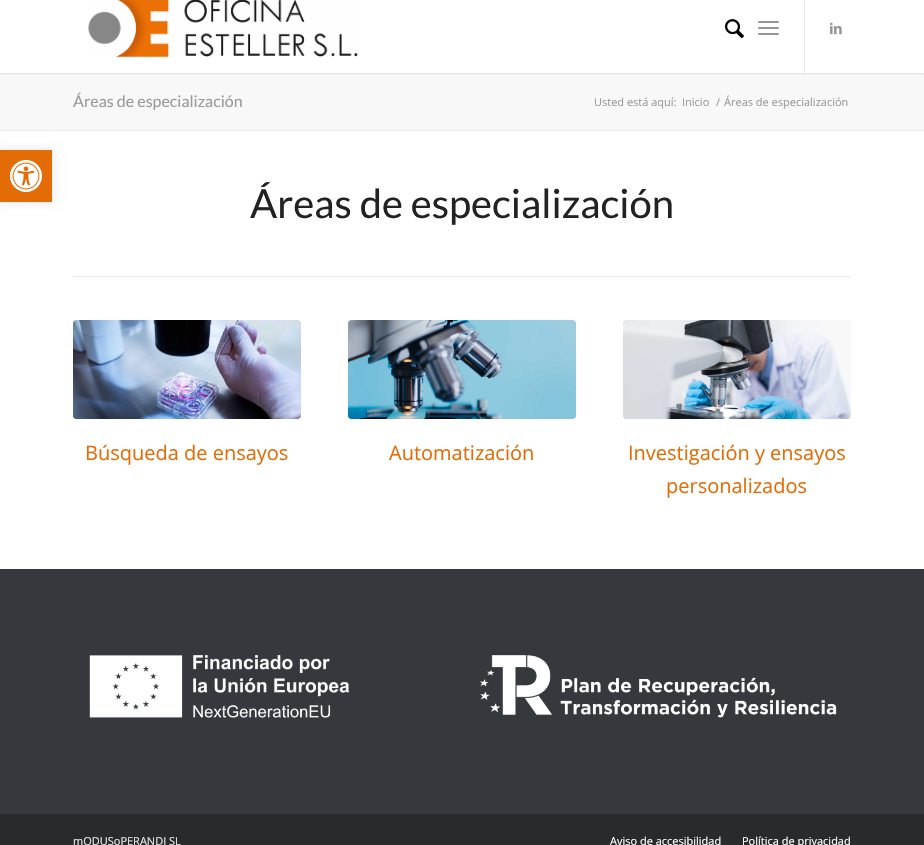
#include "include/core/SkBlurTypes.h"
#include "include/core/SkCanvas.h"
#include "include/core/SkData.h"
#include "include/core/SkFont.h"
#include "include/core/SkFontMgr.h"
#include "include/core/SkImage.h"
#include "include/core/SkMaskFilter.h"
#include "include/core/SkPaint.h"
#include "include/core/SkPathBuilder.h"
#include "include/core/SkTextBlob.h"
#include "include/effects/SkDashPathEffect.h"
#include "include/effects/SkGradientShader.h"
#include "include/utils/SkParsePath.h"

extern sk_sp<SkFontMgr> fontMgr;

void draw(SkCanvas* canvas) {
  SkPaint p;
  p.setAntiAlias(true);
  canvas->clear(SK_ColorWHITE);
  p.setColor(SkColorSetARGB(26, 0, 0, 0));
  p.setMaskFilter(SkMaskFilter::MakeBlur(kNormal_SkBlurStyle, 5));
  canvas->drawRect(SkRect::MakeLTRB(0, 150, 52, 202), p);
  p.setMaskFilter(nullptr);
  p.setColor(SkColorSetRGB(228, 108, 6));
  canvas->drawRect(SkRect::MakeLTRB(0, 150, 52, 202), p);
  canvas->drawImageRect(SkImages::DeferredFromEncodedData(SkData::MakeFromFileName("images/1.png")), SkRect::MakeLTRB(10, 160, 42, 192), SkSamplingOptions());
  p.setColor(SkColorSetRGB(248, 248, 248));
  canvas->drawRect(SkRect::MakeLTRB(0, 73, 924, 130), p);
  canvas->save();
  canvas->clipRect(SkRect::MakeLTRB(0, 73, 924, 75));
  p.setColor(SkColorSetARGB(26, 0, 0, 0));
  p.setMaskFilter(SkMaskFilter::MakeBlur(kNormal_SkBlurStyle, 1));
  canvas->drawRect(SkRect::MakeLTRB(-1, -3, 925, 74), p);
  p.setMaskFilter(nullptr);
  canvas->restore();
  canvas->drawImageRect(SkImages::DeferredFromEncodedData(SkData::MakeFromFileName("images/2.png")), SkRect::MakeLTRB(88, 0, 358, 57), SkSamplingOptions());
  p.setColor(SkColorSetRGB(235, 235, 235));
  canvas->drawRect(SkRect::MakeLTRB(804, 0, 805, 73), p);
  canvas->drawImageRect(SkImages::DeferredFromEncodedData(SkData::MakeFromFileName("images/3.png")), SkRect::MakeLTRB(725, 19, 744, 39), SkSamplingOptions());
  p.setColor(SkColorSetRGB(150, 150, 150));
  canvas->drawRoundRect(SkRect::MakeLTRB(758, 27, 779, 29), 1, 1, p);
  canvas->drawRoundRect(SkRect::MakeLTRB(758, 21, 779, 23), 1, 1, p);
  canvas->drawRoundRect(SkRect::MakeLTRB(758, 33, 779, 35), 1, 1, p);
  canvas->drawImageRect(SkImages::DeferredFromEncodedData(SkData::MakeFromFileName("images/4.png")), SkRect::MakeLTRB(830, 22, 842, 35), SkSamplingOptions());
  p.setColor(SkColorSetRGB(235, 235, 235));
  canvas->drawRect(SkRect::MakeLTRB(0, 130, 924, 131), p);
  canvas->drawRect(SkRect::MakeLTRB(73, 276, 851, 277), p);
  canvas->drawImageRect(SkImages::DeferredFromEncodedData(SkData::MakeFromFileName("images/5.png")), SkRect::MakeLTRB(73, 320, 301, 419), SkSamplingOptions());
  canvas->drawImageRect(SkImages::DeferredFromEncodedData(SkData::MakeFromFileName("images/6.png")), SkRect::MakeLTRB(348, 320, 576, 419), SkSamplingOptions());
  canvas->drawImageRect(SkImages::DeferredFromEncodedData(SkData::MakeFromFileName("images/7.png")), SkRect::MakeLTRB(623, 320, 851, 419), SkSamplingOptions());
  p.setColor(SkColorSetRGB(53, 56, 60));
  canvas->drawRect(SkRect::MakeLTRB(0, 569, 924, 814), p);
  canvas->drawImageRect(SkImages::DeferredFromEncodedData(SkData::MakeFromFileName("images/8.png")), SkRect::MakeLTRB(89, 655, 837, 718), SkSamplingOptions());
  p.setColor(SkColorSetRGB(40, 43, 46));
  canvas->drawRect(SkRect::MakeLTRB(0, 814, 924, 845), p);
  SkFont font1(fontMgr->matchFamilyStyle("Lato", SkFontStyle::Normal()), 16);
  font1.setSubpixel(true);
  p.setColor(SkColorSetRGB(153, 153, 153));
  canvas->drawString("Áreas de especialización", 73, 107, font1, p);
  SkFont font2(fontMgr->matchFamilyStyle("Open Sans", SkFontStyle::Normal()), 11);
  font2.setSubpixel(true);
  canvas->drawString("Usted está aquí:", 594, 106, font2, p);
  canvas->drawString("Inicio", 682, 106, font2, p);
  canvas->drawString("/", 716, 106, font2, p);
  canvas->drawString("Áreas de especialización", 724, 106, font2, p);
  SkFont font3(fontMgr->matchFamilyStyle("Lato", SkFontStyle::Normal()), 40);
  font3.setSubpixel(true);
  p.setColor(SkColorSetRGB(34, 34, 34));
  canvas->drawString("Áreas de especialización", 250, 218, font3, p);
  SkFont font4(fontMgr->matchFamilyStyle("Open Sans", SkFontStyle::Normal()), 20);
  font4.setSubpixel(true);
  p.setColor(SkColorSetRGB(228, 108, 6));
  canvas->drawString("Búsqueda de ensayos", 85, 460, font4, p);
  canvas->drawString("Automatización", 389, 460, font4, p);
  canvas->drawString("Investigación y ensayos", 628, 460, font4, p);
  canvas->drawString("personalizados", 666, 493, font4, p);
  p.setColor(SkColorSetRGB(232, 232, 232));
  canvas->drawString("mODUSoPERANDI SL", 73, 845, font2, p);
  p.setColor(SK_ColorWHITE);
  canvas->drawString("Aviso de accesibilidad", 610, 845, font2, p);
  canvas->drawString("Política de privacidad", 742, 845, font2, p);
}
